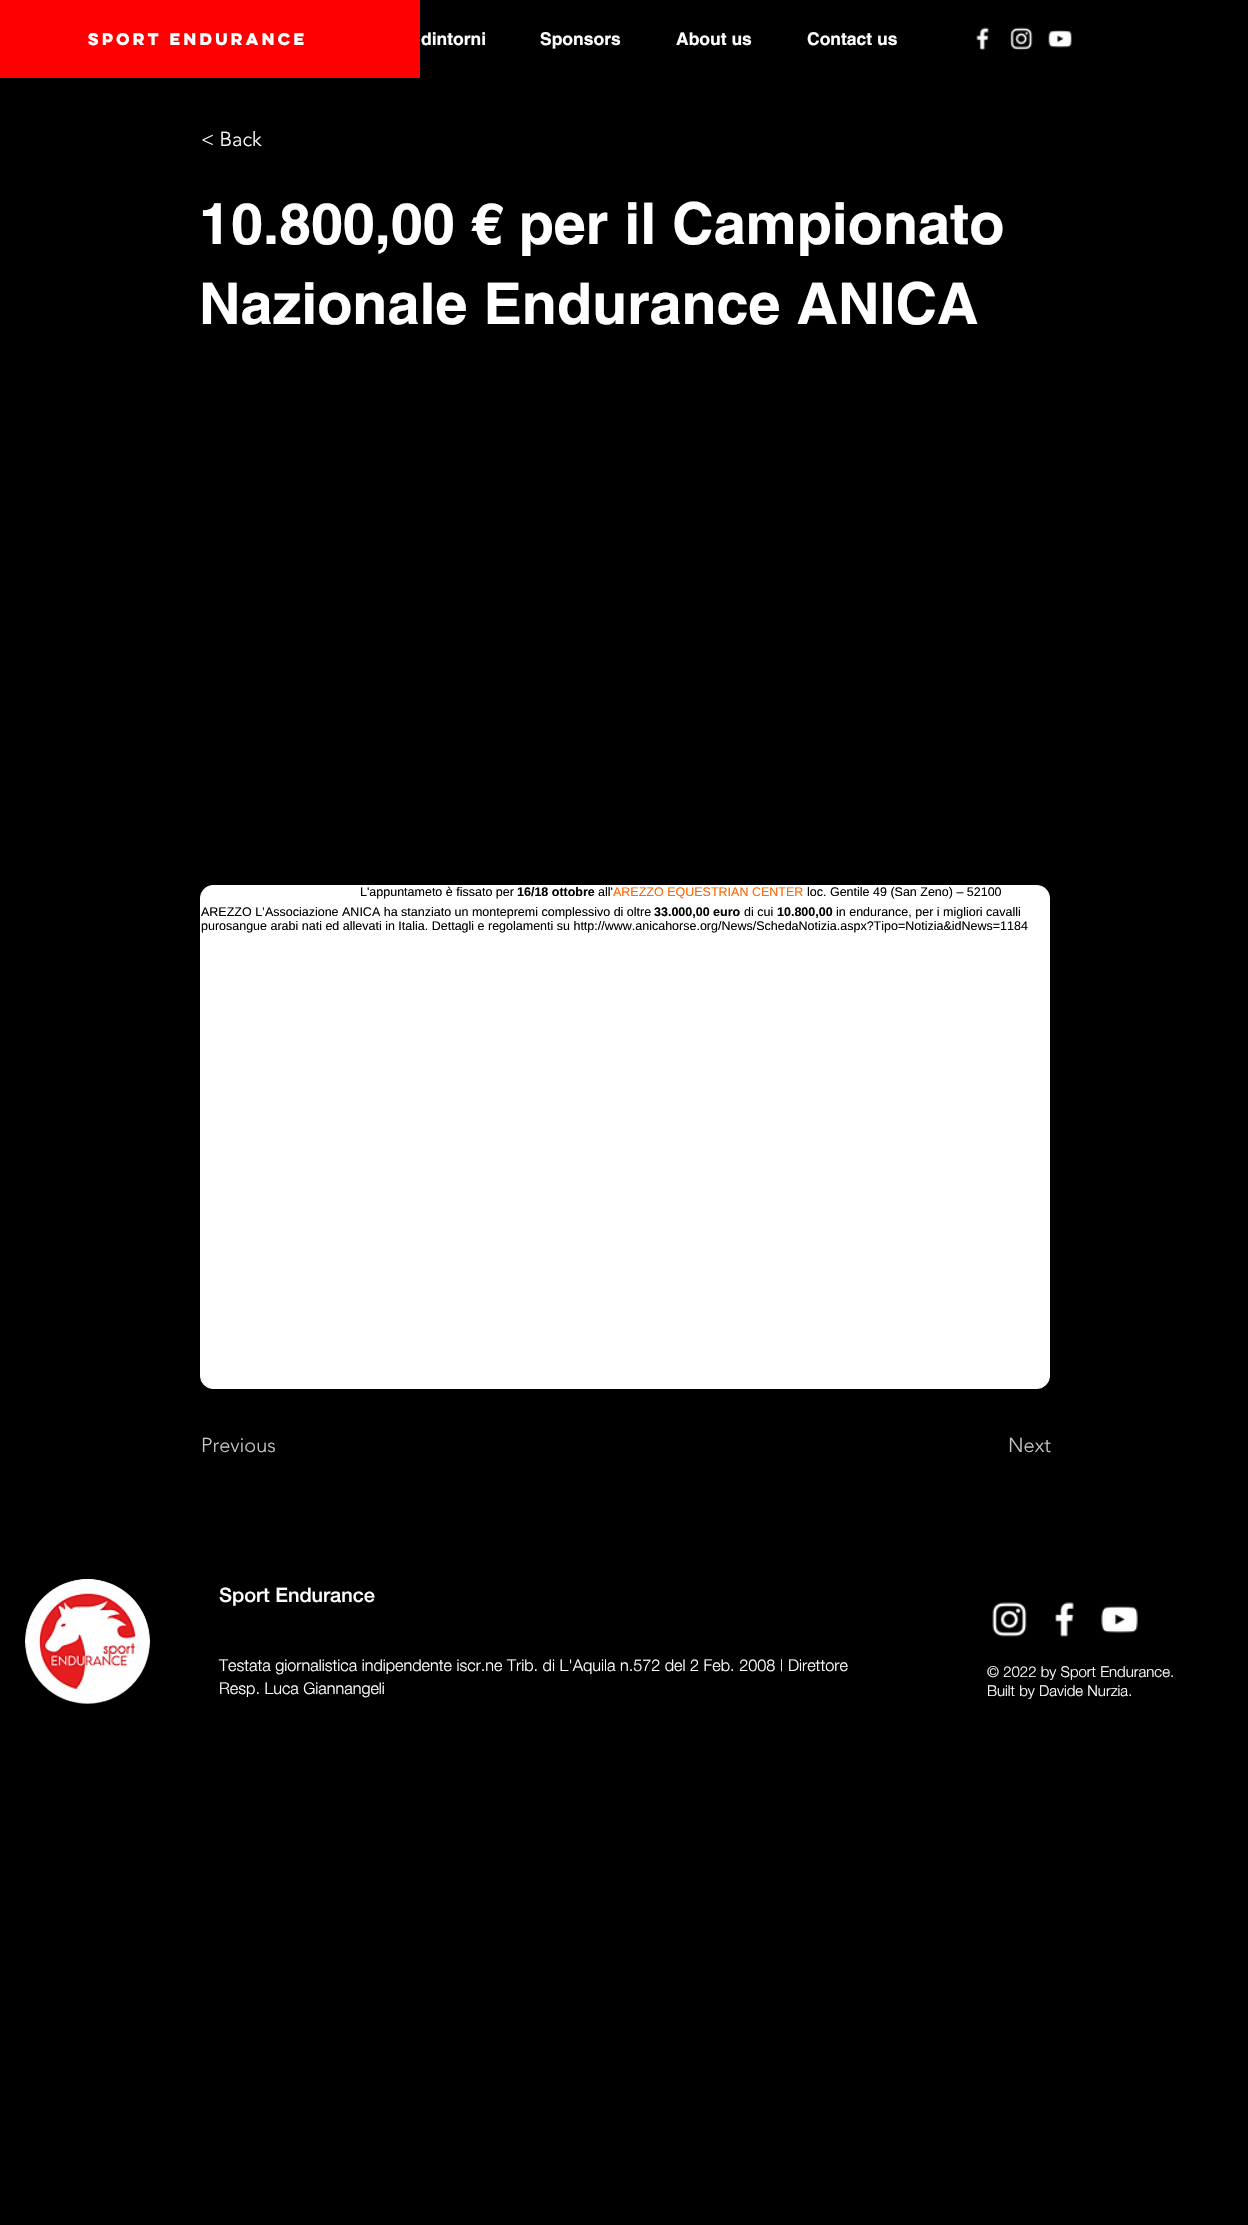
#include "include/core/SkBlurTypes.h"
#include "include/core/SkCanvas.h"
#include "include/core/SkData.h"
#include "include/core/SkFont.h"
#include "include/core/SkFontMgr.h"
#include "include/core/SkImage.h"
#include "include/core/SkMaskFilter.h"
#include "include/core/SkPaint.h"
#include "include/core/SkPathBuilder.h"
#include "include/core/SkTextBlob.h"
#include "include/effects/SkDashPathEffect.h"
#include "include/effects/SkGradientShader.h"
#include "include/utils/SkParsePath.h"

extern sk_sp<SkFontMgr> fontMgr;

void draw(SkCanvas* canvas) {
  SkPaint p;
  p.setAntiAlias(true);
  canvas->clear(SK_ColorBLACK);
  p.setColor(SkColorSetRGB(255, 0, 0));
  canvas->drawRect(SkRect::MakeLTRB(0, 0, 420, 78), p);
  canvas->drawImageRect(SkImages::DeferredFromEncodedData(SkData::MakeFromFileName("images/1.png")), SkRect::MakeLTRB(976, 27, 989, 51), SkSamplingOptions());
  canvas->drawImageRect(SkImages::DeferredFromEncodedData(SkData::MakeFromFileName("images/2.png")), SkRect::MakeLTRB(1010, 27, 1033, 50), SkSamplingOptions());
  canvas->drawImageRect(SkImages::DeferredFromEncodedData(SkData::MakeFromFileName("images/3.png")), SkRect::MakeLTRB(1048, 30, 1073, 48), SkSamplingOptions());
  p.setColor(SK_ColorWHITE);
  canvas->drawRoundRect(SkRect::MakeLTRB(200.5f, 885.5f, 1049.5f, 1388.5f), 12.5f, 12.5f, p);
  p.setStyle(SkPaint::kStroke_Style);
  p.setStrokeWidth(1);
  canvas->drawRoundRect(SkRect::MakeLTRB(200.5f, 885.5f, 1049.5f, 1388.5f), 12.5f, 12.5f, p);
  p.setStyle(SkPaint::kFill_Style);
  p.setColor(SkColorSetRGB(102, 102, 102));
  canvas->drawCircle(87.5f, 1641.5f, 62.5f, p);
  canvas->drawImageRect(SkImages::DeferredFromEncodedData(SkData::MakeFromFileName("images/4.png")), SkRect::MakeLTRB(25, 1579, 150, 1704), SkSamplingOptions());
  canvas->drawImageRect(SkImages::DeferredFromEncodedData(SkData::MakeFromFileName("images/5.png")), SkRect::MakeLTRB(992, 1602, 1027, 1637), SkSamplingOptions());
  canvas->drawImageRect(SkImages::DeferredFromEncodedData(SkData::MakeFromFileName("images/6.png")), SkRect::MakeLTRB(1055, 1602, 1074, 1637), SkSamplingOptions());
  canvas->drawImageRect(SkImages::DeferredFromEncodedData(SkData::MakeFromFileName("images/7.png")), SkRect::MakeLTRB(1101, 1606, 1138, 1633), SkSamplingOptions());
  SkFont font1(fontMgr->matchFamilyStyle("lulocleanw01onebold", SkFontStyle::Bold()), 15);
  font1.setSubpixel(true);
  p.setColor(SK_ColorWHITE);
  canvas->drawString("Sport endurANCE", 88, 45, font1, p);
  SkFont font2(fontMgr->matchFamilyStyle("helvetica", SkFontStyle::Bold()), 17.5f);
  font2.setSubpixel(true);
  canvas->drawString("dintorni", 421, 45, font2, p);
  canvas->drawString("Sponsors", 540, 45, font2, p);
  canvas->drawString("About us", 676, 45, font2, p);
  canvas->drawString("Contact us", 807, 45, font2, p);
  SkFont font3(fontMgr->matchFamilyStyle("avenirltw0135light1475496", SkFontStyle(300, SkFontStyle::kNormal_Width, SkFontStyle::kUpright_Slant)), 20);
  font3.setSubpixel(true);
  canvas->drawString("< Back", 201, 146, font3, p);
  SkFont font4(fontMgr->matchFamilyStyle("helvetica", SkFontStyle::Bold()), 57.5f);
  font4.setSubpixel(true);
  canvas->drawString("10.800,00 € per il Campionato", 199, 244, font4, p);
  canvas->drawString("Nazionale Endurance ANICA", 199, 324, font4, p);
  SkFont font5(fontMgr->matchFamilyStyle("Liberation Sans", SkFontStyle::Normal()), 12.5f);
  font5.setSubpixel(true);
  p.setColor(SK_ColorBLACK);
  canvas->drawString("L'appuntameto è fissato per", 360, 896, font5, p);
  SkFont font6(fontMgr->matchFamilyStyle("Liberation Sans", SkFontStyle::Bold()), 12.5f);
  font6.setSubpixel(true);
  canvas->drawString("16/18 ottobre", 517, 896, font6, p);
  canvas->drawString("all'", 598, 896, font5, p);
  p.setColor(SkColorSetRGB(255, 102, 0));
  canvas->drawString("AREZZO EQUESTRIAN CENTER", 613, 896, font5, p);
  p.setColor(SK_ColorBLACK);
  canvas->drawString("loc. Gentile 49 (San Zeno) – 52100", 807, 896, font5, p);
  canvas->drawString("AREZZO L’Associazione ANICA ha stanziato un montepremi complessivo di oltre", 201, 916, font5, p);
  canvas->drawString("33.000,00 euro", 654, 916, font6, p);
  canvas->drawString("di cui", 744, 916, font5, p);
  canvas->drawString("10.800,00", 777, 916, font6, p);
  canvas->drawString("in endurance, per i migliori cavalli", 836, 916, font5, p);
  canvas->drawString("purosangue arabi nati ed allevati in Italia. Dettagli e regolamenti su http://www.anicahorse.org/News/SchedaNotizia.aspx?Tipo=Notizia&idNews=1184", 201, 930, font5, p);
  p.setColor(SkColorSetRGB(199, 199, 199));
  canvas->drawString("Previous", 201, 1452, font3, p);
  canvas->drawString("Next", 1008, 1452, font3, p);
  SkFont font7(fontMgr->matchFamilyStyle("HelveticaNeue", SkFontStyle(500, SkFontStyle::kNormal_Width, SkFontStyle::kUpright_Slant)), 20);
  font7.setSubpixel(true);
  p.setColor(SK_ColorWHITE);
  canvas->drawString("Sport Endurance", 219, 1602, font7, p);
  SkFont font8(fontMgr->matchFamilyStyle("HelveticaNeue", SkFontStyle(300, SkFontStyle::kNormal_Width, SkFontStyle::kUpright_Slant)), 16.25f);
  font8.setSubpixel(true);
  canvas->drawString("Testata giornalistica indipendente iscr.ne Trib. di L'Aquila n.572 del 2 Feb. 2008 | Direttore", 219, 1671, font8, p);
  canvas->drawString("Resp. Luca Giannangeli", 219, 1694, font8, p);
  SkFont font9(fontMgr->matchFamilyStyle("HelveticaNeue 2", SkFontStyle(300, SkFontStyle::kNormal_Width, SkFontStyle::kUpright_Slant)), 15);
  font9.setSubpixel(true);
  canvas->drawString("© 2022 by Sport Endurance.", 987, 1677, font9, p);
  canvas->drawString("Built by Davide Nurzia.", 987, 1696, font9, p);
}
